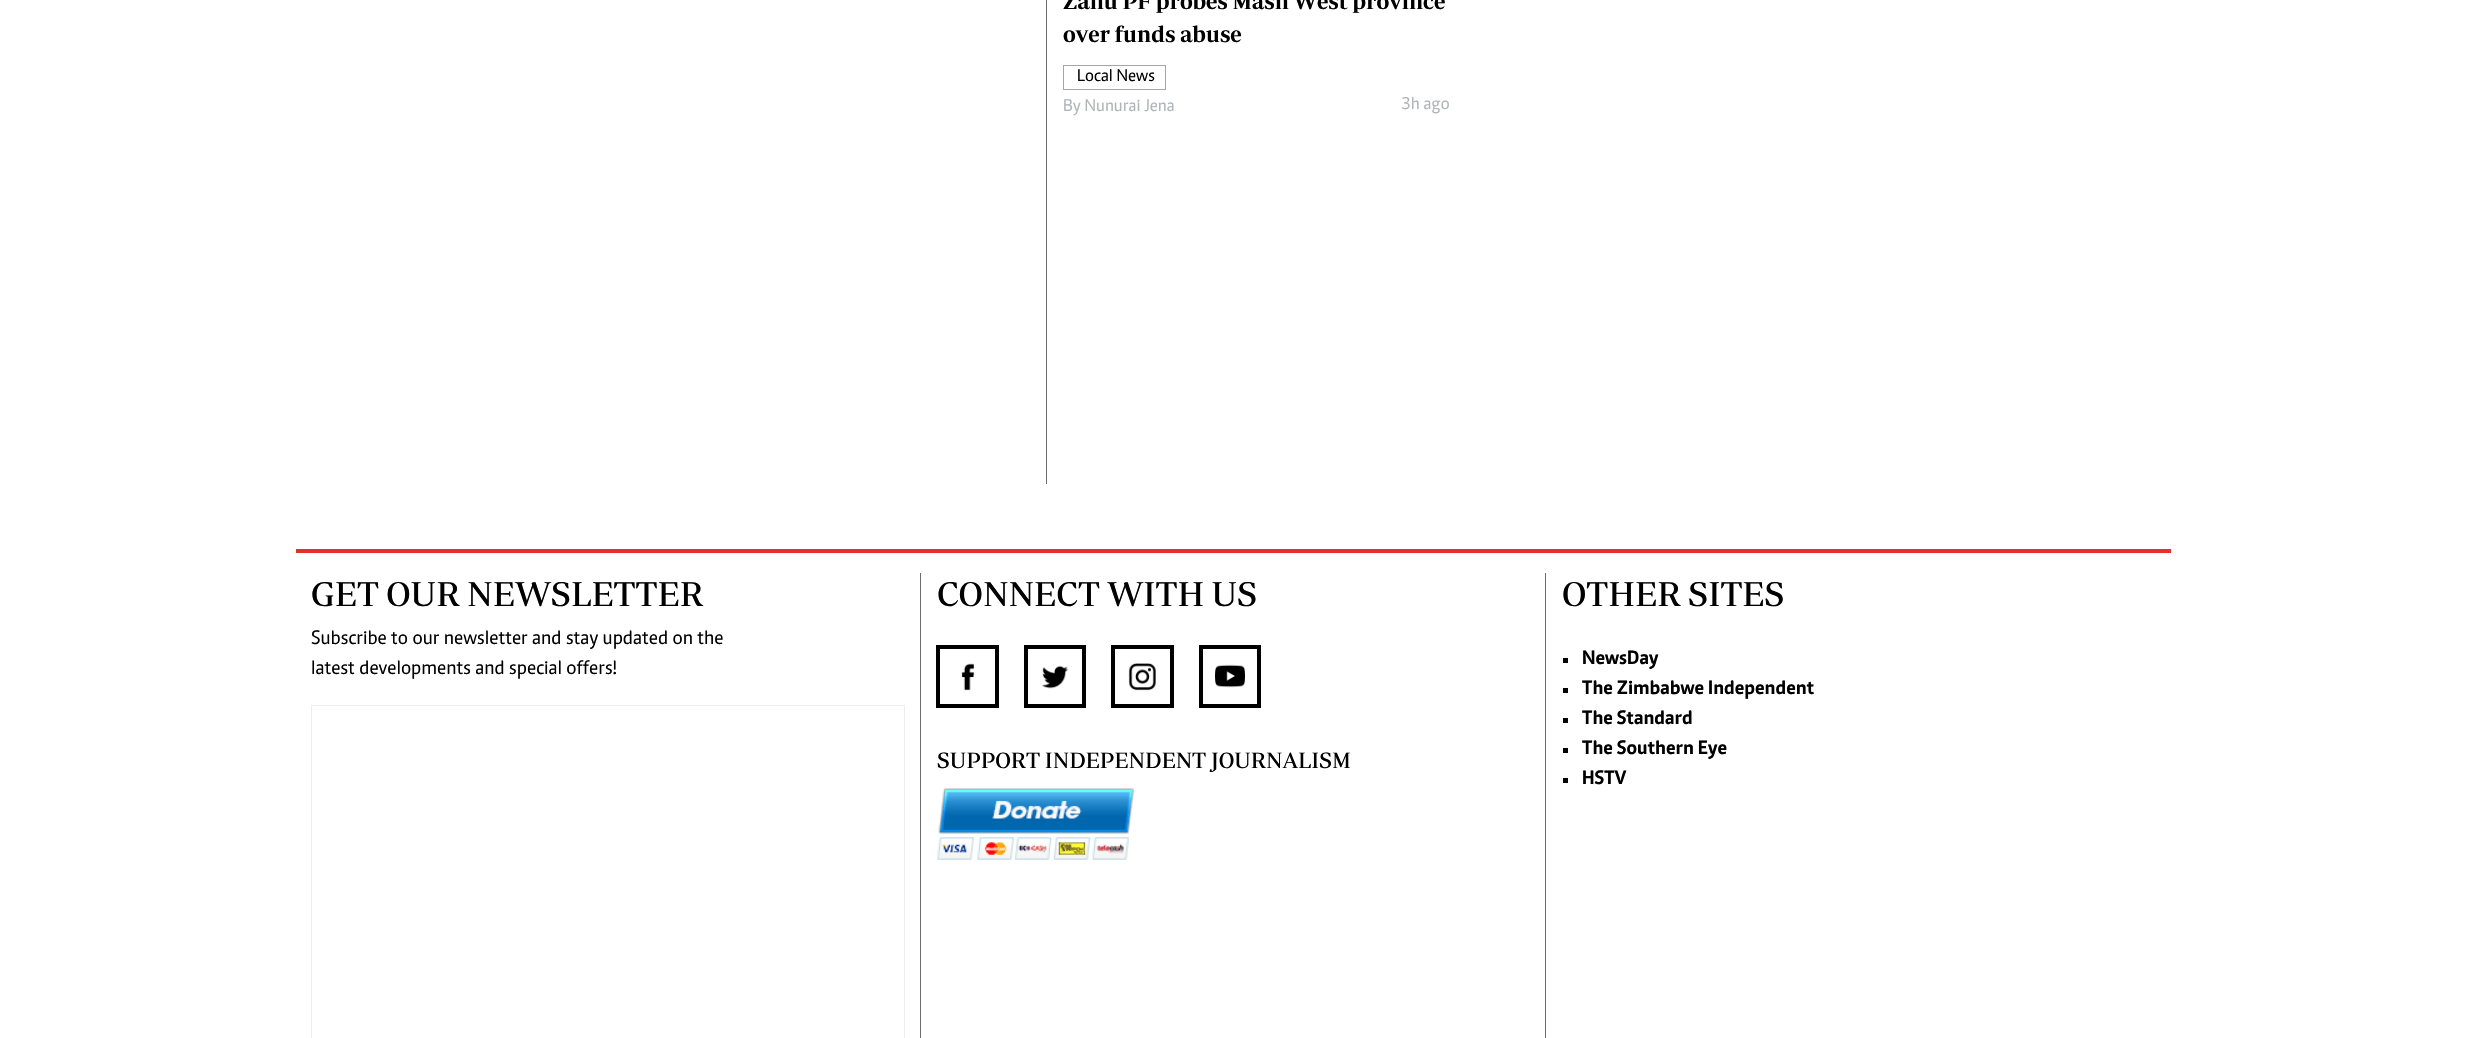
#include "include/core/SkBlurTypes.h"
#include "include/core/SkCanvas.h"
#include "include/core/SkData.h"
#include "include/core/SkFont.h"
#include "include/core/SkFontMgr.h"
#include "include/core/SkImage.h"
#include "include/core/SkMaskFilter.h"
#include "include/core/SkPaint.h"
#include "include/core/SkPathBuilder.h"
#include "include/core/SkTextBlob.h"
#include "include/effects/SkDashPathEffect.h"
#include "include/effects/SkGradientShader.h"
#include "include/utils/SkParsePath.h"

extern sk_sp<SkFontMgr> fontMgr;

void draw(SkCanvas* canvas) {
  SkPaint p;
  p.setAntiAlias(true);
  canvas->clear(SK_ColorWHITE);
  p.setColor(SkColorSetRGB(110, 109, 109));
  canvas->drawRect(SkRect::MakeLTRB(1046, 0, 1047, 484), p);
  p.setStyle(SkPaint::kStroke_Style);
  p.setStrokeWidth(1);
  p.setColor(SkColorSetRGB(164, 165, 169));
  canvas->drawRect(SkRect::MakeLTRB(1063.5f, 65.5f, 1165.5f, 89.5f), p);
  p.setStyle(SkPaint::kFill_Style);
  p.setColor(SkColorSetRGB(229, 47, 45));
  canvas->drawRect(SkRect::MakeLTRB(296, 549, 2171, 553), p);
  p.setStyle(SkPaint::kStroke_Style);
  p.setColor(SkColorSetRGB(238, 238, 238));
  canvas->drawRect(SkRect::MakeLTRB(311.5f, 705.5f, 904.5f, 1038.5f), p);
  p.setStyle(SkPaint::kFill_Style);
  p.setColor(SkColorSetRGB(110, 109, 109));
  canvas->drawRect(SkRect::MakeLTRB(920, 573, 921, 1038), p);
  p.setStyle(SkPaint::kStroke_Style);
  p.setStrokeWidth(4);
  p.setColor(SK_ColorBLACK);
  canvas->drawRect(SkRect::MakeLTRB(938, 647, 997, 706), p);
  canvas->drawImageRect(SkImages::DeferredFromEncodedData(SkData::MakeFromFileName("images/1.png")), SkRect::MakeLTRB(961, 663, 975, 691), SkSamplingOptions());
  canvas->drawRect(SkRect::MakeLTRB(1026, 647, 1084, 706), p);
  canvas->drawImageRect(SkImages::DeferredFromEncodedData(SkData::MakeFromFileName("images/2.png")), SkRect::MakeLTRB(1042, 665, 1068, 689), SkSamplingOptions());
  canvas->drawRect(SkRect::MakeLTRB(1113, 647, 1172, 706), p);
  canvas->drawImageRect(SkImages::DeferredFromEncodedData(SkData::MakeFromFileName("images/3.png")), SkRect::MakeLTRB(1128, 663, 1156, 691), SkSamplingOptions());
  canvas->drawRect(SkRect::MakeLTRB(1201, 647, 1259, 706), p);
  canvas->drawImageRect(SkImages::DeferredFromEncodedData(SkData::MakeFromFileName("images/4.png")), SkRect::MakeLTRB(1215, 664, 1245, 688), SkSamplingOptions());
  canvas->drawImageRect(SkImages::DeferredFromEncodedData(SkData::MakeFromFileName("images/5.png")), SkRect::MakeLTRB(937, 788, 1134, 860), SkSamplingOptions());
  p.setStyle(SkPaint::kFill_Style);
  p.setColor(SkColorSetRGB(110, 109, 109));
  canvas->drawRect(SkRect::MakeLTRB(1545, 573, 1546, 1038), p);
  p.setColor(SK_ColorBLACK);
  canvas->drawRect(SkRect::MakeLTRB(1563, 658, 1568, 663), p);
  canvas->drawRect(SkRect::MakeLTRB(1563, 688, 1568, 693), p);
  canvas->drawRect(SkRect::MakeLTRB(1563, 718, 1568, 723), p);
  canvas->drawRect(SkRect::MakeLTRB(1563, 748, 1568, 753), p);
  canvas->drawRect(SkRect::MakeLTRB(1563, 778, 1568, 783), p);
  SkFont font1(fontMgr->matchFamilyStyle("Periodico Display", SkFontStyle(600, SkFontStyle::kNormal_Width, SkFontStyle::kUpright_Slant)), 22.5f);
  font1.setSubpixel(true);
  canvas->drawString("Zanu PF probes Mash West province", 1063, 9, font1, p);
  canvas->drawString("over funds abuse", 1063, 42, font1, p);
  SkFont font2(fontMgr->matchFamilyStyle("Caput", SkFontStyle::Normal()), 17.5f);
  font2.setSubpixel(true);
  canvas->drawString("Local News", 1077, 81, font2, p);
  p.setColor(SkColorSetRGB(177, 180, 183));
  canvas->drawString("By Nunurai Jena", 1063, 111, font2, p);
  canvas->drawString("3h ago", 1401, 109, font2, p);
  SkFont font3(fontMgr->matchFamilyStyle("Periodico Display", SkFontStyle::Normal()), 35);
  font3.setSubpixel(true);
  p.setColor(SK_ColorBLACK);
  canvas->drawString("GET OUR NEWSLETTER", 311, 606, font3, p);
  SkFont font4(fontMgr->matchFamilyStyle("Caput", SkFontStyle::Normal()), 20);
  font4.setSubpixel(true);
  canvas->drawString("Subscribe to our newsletter and stay updated on the", 311, 644, font4, p);
  canvas->drawString("latest developments and special offers!", 311, 674, font4, p);
  canvas->drawString("CONNECT WITH US", 937, 606, font3, p);
  SkFont font5(fontMgr->matchFamilyStyle("Periodico Display", SkFontStyle::Normal()), 22.5f);
  font5.setSubpixel(true);
  canvas->drawString("SUPPORT INDEPENDENT JOURNALISM", 937, 768, font5, p);
  canvas->drawString("OTHER SITES", 1562, 606, font3, p);
  SkFont font6(fontMgr->matchFamilyStyle("Caput", SkFontStyle::Bold()), 20);
  font6.setSubpixel(true);
  canvas->drawString("NewsDay", 1582, 664, font6, p);
  canvas->drawString("The Zimbabwe Independent", 1582, 694, font6, p);
  canvas->drawString("The Standard", 1582, 724, font6, p);
  canvas->drawString("The Southern Eye", 1582, 754, font6, p);
  canvas->drawString("HSTV", 1582, 784, font6, p);
}
